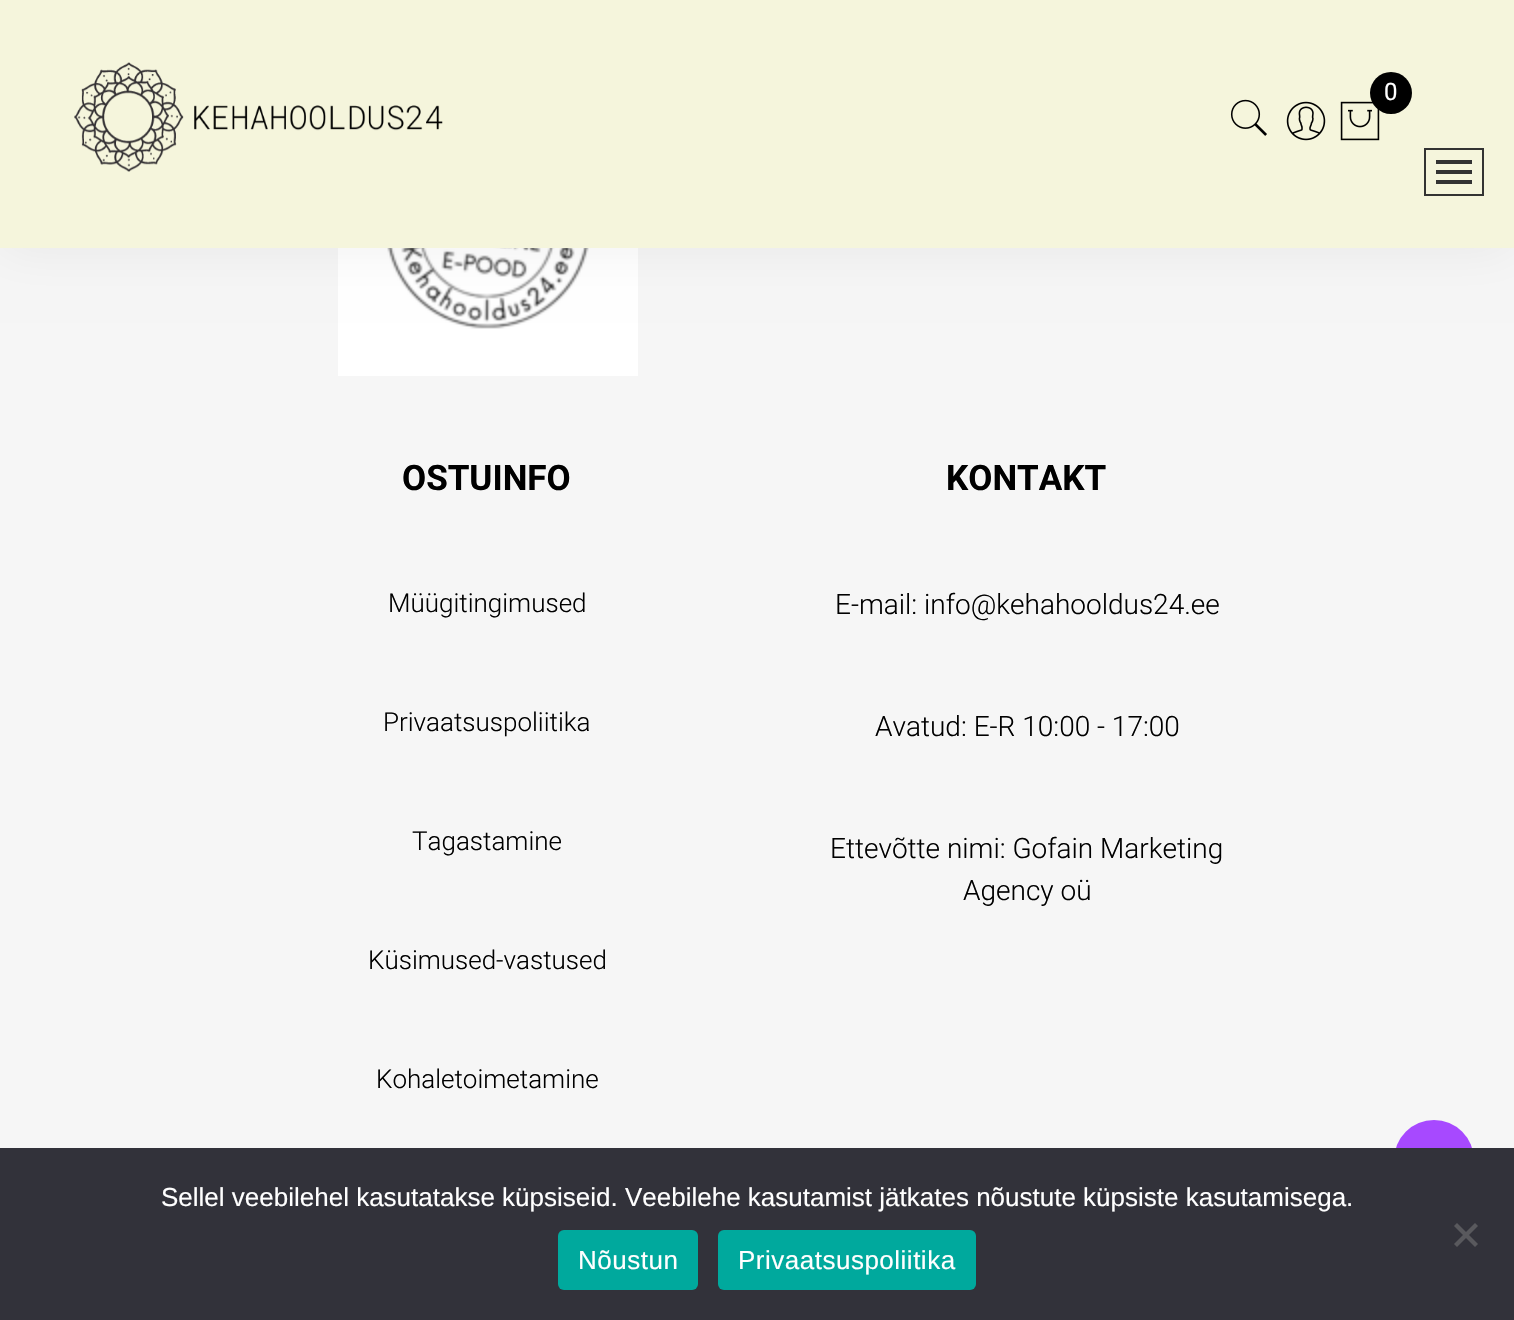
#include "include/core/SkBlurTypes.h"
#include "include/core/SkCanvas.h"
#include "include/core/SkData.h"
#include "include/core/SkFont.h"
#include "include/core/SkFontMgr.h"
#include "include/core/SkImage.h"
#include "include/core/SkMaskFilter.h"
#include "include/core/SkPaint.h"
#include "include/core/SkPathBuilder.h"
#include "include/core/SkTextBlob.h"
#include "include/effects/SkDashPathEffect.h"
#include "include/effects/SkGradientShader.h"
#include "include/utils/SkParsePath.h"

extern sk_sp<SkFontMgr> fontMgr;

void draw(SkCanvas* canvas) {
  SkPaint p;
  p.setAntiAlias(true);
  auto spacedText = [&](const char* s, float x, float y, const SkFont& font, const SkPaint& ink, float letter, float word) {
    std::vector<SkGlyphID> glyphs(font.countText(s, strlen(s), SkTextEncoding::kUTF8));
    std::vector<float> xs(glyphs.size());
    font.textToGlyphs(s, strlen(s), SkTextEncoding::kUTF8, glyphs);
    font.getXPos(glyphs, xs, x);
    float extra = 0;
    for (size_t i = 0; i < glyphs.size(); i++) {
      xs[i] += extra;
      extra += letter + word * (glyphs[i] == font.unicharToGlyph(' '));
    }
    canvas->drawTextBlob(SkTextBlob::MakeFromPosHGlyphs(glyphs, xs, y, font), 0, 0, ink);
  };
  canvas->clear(SkColorSetRGB(246, 246, 246));
  canvas->drawImageRect(SkImages::DeferredFromEncodedData(SkData::MakeFromFileName("images/5.png")), SkRect::MakeLTRB(338, 248, 638, 376), SkSamplingOptions());
  p.setColor(SkColorSetARGB(15, 0, 0, 0));
  p.setMaskFilter(SkMaskFilter::MakeBlur(kNormal_SkBlurStyle, 25));
  canvas->drawRect(SkRect::MakeLTRB(0, 0, 1514, 248), p);
  p.setMaskFilter(nullptr);
  p.setColor(SkColorSetRGB(245, 245, 220));
  canvas->drawRect(SkRect::MakeLTRB(0, 0, 1514, 248), p);
  canvas->drawImageRect(SkImages::DeferredFromEncodedData(SkData::MakeFromFileName("images/1.png")), SkRect::MakeLTRB(74, 62, 443, 172), SkSamplingOptions());
  canvas->drawImageRect(SkImages::DeferredFromEncodedData(SkData::MakeFromFileName("images/2.png")), SkRect::MakeLTRB(1340, 101, 1380, 141), SkSamplingOptions());
  p.setColor(SK_ColorBLACK);
  canvas->drawCircle(1391, 93, 21, p);
  canvas->drawImageRect(SkImages::DeferredFromEncodedData(SkData::MakeFromFileName("images/3.png")), SkRect::MakeLTRB(1230, 99, 1267, 136), SkSamplingOptions());
  canvas->drawImageRect(SkImages::DeferredFromEncodedData(SkData::MakeFromFileName("images/4.png")), SkRect::MakeLTRB(1286, 101, 1326, 141), SkSamplingOptions());
  p.setStyle(SkPaint::kStroke_Style);
  p.setStrokeWidth(2);
  p.setColor(SkColorSetRGB(51, 51, 51));
  canvas->drawRect(SkRect::MakeLTRB(1425, 149, 1483, 195), p);
  p.setStyle(SkPaint::kFill_Style);
  canvas->drawRect(SkRect::MakeLTRB(1436, 160, 1472, 164), p);
  canvas->drawRect(SkRect::MakeLTRB(1436, 170, 1472, 174), p);
  canvas->drawRect(SkRect::MakeLTRB(1436, 180, 1472, 184), p);
  p.setColor(SkColorSetRGB(167, 73, 255));
  canvas->drawCircle(1434, 1160, 40, p);
  p.setColor(SkColorSetRGB(50, 50, 58));
  canvas->drawRect(SkRect::MakeLTRB(0, 1148, 1514, 1320), p);
  p.setColor(SkColorSetRGB(89, 89, 93));
  canvas->drawPath(SkPathBuilder().moveTo(1475, 1223).lineTo(1478, 1226).lineTo(1457, 1247).lineTo(1454, 1244).close().detach(), p);
  canvas->drawPath(SkPathBuilder().moveTo(1454, 1226).lineTo(1457, 1223).lineTo(1478, 1244).lineTo(1475, 1247).close().detach(), p);
  p.setColor(SkColorSetRGB(0, 169, 157));
  canvas->drawRoundRect(SkRect::MakeLTRB(558, 1230, 698, 1290), 6, 6, p);
  canvas->drawRoundRect(SkRect::MakeLTRB(718, 1230, 976, 1290), 6, 6, p);
  SkFont font1(fontMgr->matchFamilyStyle("Roboto", SkFontStyle::Normal()), 24);
  font1.setSubpixel(true);
  p.setColor(SK_ColorWHITE);
  canvas->drawString("0", 1384, 100, font1, p);
  SkFont font2(fontMgr->matchFamilyStyle("Roboto", SkFontStyle::Bold()), 35);
  font2.setSubpixel(true);
  p.setColor(SK_ColorBLACK);
  canvas->drawString("OSTUINFO", 402, 490, font2, p);
  SkFont font3(fontMgr->matchFamilyStyle("Roboto", SkFontStyle(300, SkFontStyle::kNormal_Width, SkFontStyle::kUpright_Slant)), 26);
  font3.setSubpixel(true);
  canvas->drawString("Müügitingimused", 388, 612, font3, p);
  canvas->drawString("Privaatsuspoliitika", 383, 731, font3, p);
  canvas->drawString("Tagastamine", 412, 850, font3, p);
  canvas->drawString("Küsimused-vastused", 368, 969, font3, p);
  canvas->drawString("Kohaletoimetamine", 376, 1088, font3, p);
  canvas->drawString("KONTAKT", 946, 490, font2, p);
  SkFont font4(fontMgr->matchFamilyStyle("Roboto", SkFontStyle(300, SkFontStyle::kNormal_Width, SkFontStyle::kUpright_Slant)), 28);
  font4.setSubpixel(true);
  canvas->drawString("E-mail: info@kehahooldus24.ee", 835, 614, font4, p);
  canvas->drawString("Avatud: E-R 10:00 - 17:00", 875, 736, font4, p);
  canvas->drawString("Ettevõtte nimi: Gofain Marketing", 830, 858, font4, p);
  canvas->drawString("Agency oü", 963, 900, font4, p);
  SkFont font5(fontMgr->matchFamilyStyle("Liberation Sans", SkFontStyle::Normal()), 26);
  font5.setSubpixel(true);
  p.setColor(SK_ColorWHITE);
  canvas->drawString("Sellel veebilehel kasutatakse küpsiseid. Veebilehe kasutamist jätkates nõustute küpsiste kasutamisega.", 161, 1206, font5, p);
  spacedText("Nõustun", 578, 1269, font5, p, 0.5f, 0);
  spacedText("Privaatsuspoliitika", 738, 1269, font5, p, 0.5f, 0);
}
